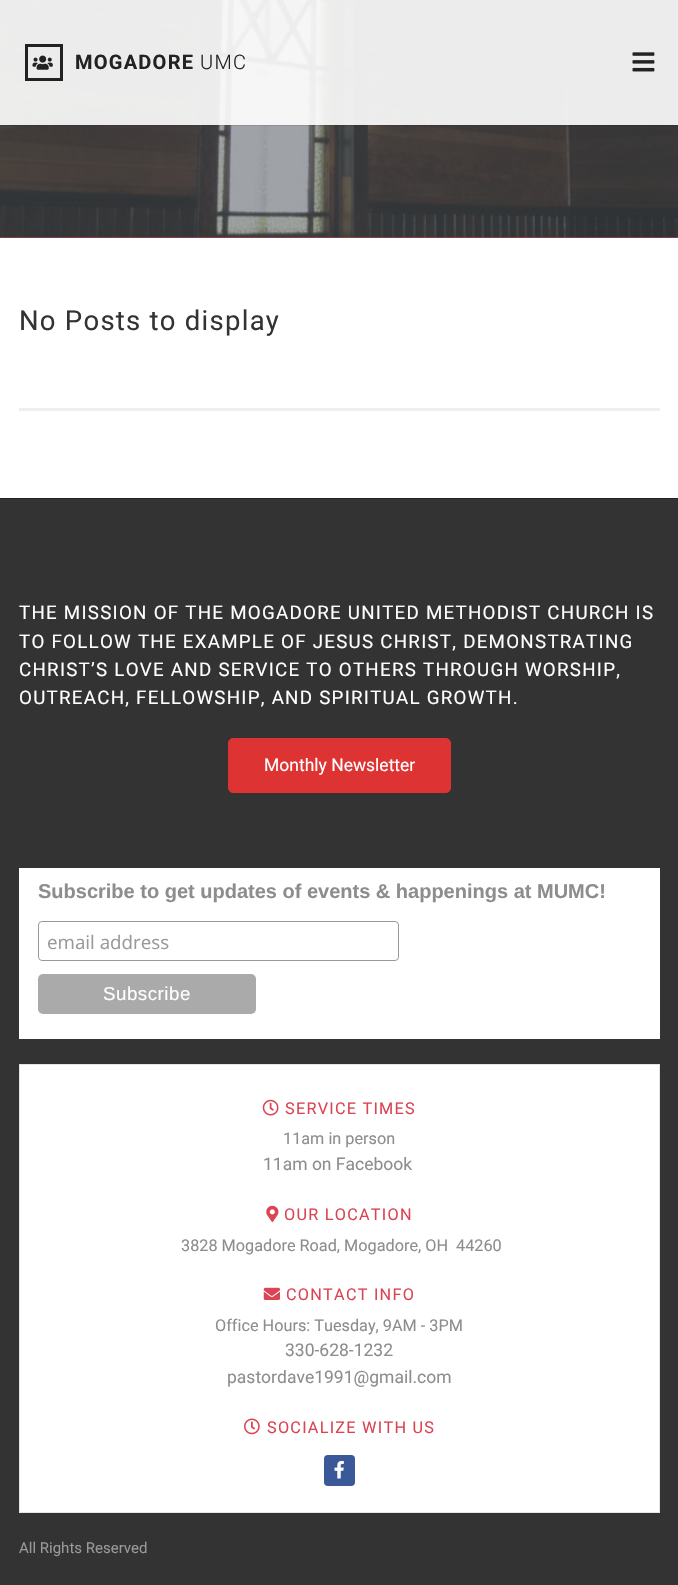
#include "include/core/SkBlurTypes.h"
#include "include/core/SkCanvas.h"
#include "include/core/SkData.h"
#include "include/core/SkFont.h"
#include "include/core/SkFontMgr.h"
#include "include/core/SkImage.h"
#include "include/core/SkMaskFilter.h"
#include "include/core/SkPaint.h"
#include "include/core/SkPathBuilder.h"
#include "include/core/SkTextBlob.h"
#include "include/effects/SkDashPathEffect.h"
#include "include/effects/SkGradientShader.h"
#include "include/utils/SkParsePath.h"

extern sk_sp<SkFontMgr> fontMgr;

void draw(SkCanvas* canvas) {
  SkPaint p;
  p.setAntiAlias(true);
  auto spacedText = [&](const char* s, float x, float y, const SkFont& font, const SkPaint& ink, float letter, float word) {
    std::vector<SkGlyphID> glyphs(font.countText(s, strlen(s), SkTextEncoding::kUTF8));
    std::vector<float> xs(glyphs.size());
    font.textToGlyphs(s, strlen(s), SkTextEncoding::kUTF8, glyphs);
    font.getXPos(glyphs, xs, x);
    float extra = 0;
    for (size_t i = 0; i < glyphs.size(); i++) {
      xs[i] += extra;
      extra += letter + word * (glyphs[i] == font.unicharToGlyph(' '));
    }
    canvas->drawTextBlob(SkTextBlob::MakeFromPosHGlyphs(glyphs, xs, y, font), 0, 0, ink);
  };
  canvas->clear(SK_ColorWHITE);
  p.setColor(SkColorSetRGB(218, 68, 83));
  canvas->drawRect(SkRect::MakeLTRB(0, 237, 678, 238), p);
  canvas->drawImageRect(SkImages::DeferredFromEncodedData(SkData::MakeFromFileName("images/1.png")), SkRect::MakeLTRB(0, 0, 678, 238), SkSamplingOptions());
  canvas->save();
  canvas->clipRect(SkRect::MakeLTRB(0, 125, 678, 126));
  p.setColor(SkColorSetARGB(26, 0, 0, 0));
  p.setMaskFilter(SkMaskFilter::MakeBlur(kNormal_SkBlurStyle, 0.5f));
  canvas->drawRect(SkRect::MakeLTRB(0, 1, 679, 126), p);
  p.setMaskFilter(nullptr);
  canvas->restore();
  p.setColor(SkColorSetARGB(230, 255, 255, 255));
  canvas->drawRect(SkRect::MakeLTRB(0, 0, 678, 125), p);
  p.setStyle(SkPaint::kStroke_Style);
  p.setStrokeWidth(3);
  p.setColor(SkColorSetRGB(34, 34, 34));
  canvas->drawRect(SkRect::MakeLTRB(26.5f, 45.5f, 61.5f, 79.5f), p);
  canvas->drawImageRect(SkImages::DeferredFromEncodedData(SkData::MakeFromFileName("images/2.png")), SkRect::MakeLTRB(32, 55, 53, 70), SkSamplingOptions());
  canvas->drawImageRect(SkImages::DeferredFromEncodedData(SkData::MakeFromFileName("images/3.png")), SkRect::MakeLTRB(632, 52, 655, 72), SkSamplingOptions());
  p.setStyle(SkPaint::kFill_Style);
  p.setColor(SkColorSetRGB(239, 239, 239));
  canvas->drawRect(SkRect::MakeLTRB(19, 408, 660, 411), p);
  p.setColor(SkColorSetRGB(51, 51, 51));
  canvas->drawRect(SkRect::MakeLTRB(0, 499, 678, 1585), p);
  p.setColor(SkColorSetRGB(34, 34, 34));
  canvas->drawRect(SkRect::MakeLTRB(0, 498, 678, 499), p);
  p.setColor(SkColorSetRGB(221, 51, 51));
  canvas->drawRoundRect(SkRect::MakeLTRB(228.5f, 738.5f, 450.5f, 792.5f), 4.5f, 4.5f, p);
  p.setStyle(SkPaint::kStroke_Style);
  p.setStrokeWidth(1);
  canvas->drawRoundRect(SkRect::MakeLTRB(228.5f, 738.5f, 450.5f, 792.5f), 4.5f, 4.5f, p);
  p.setStyle(SkPaint::kFill_Style);
  p.setColor(SK_ColorWHITE);
  canvas->drawRect(SkRect::MakeLTRB(19, 868, 660, 1039), p);
  p.setStyle(SkPaint::kStroke_Style);
  p.setColor(SkColorSetRGB(153, 153, 153));
  canvas->drawRoundRect(SkRect::MakeLTRB(38.5f, 921.5f, 398.5f, 960.5f), 3.5f, 3.5f, p);
  p.setStyle(SkPaint::kFill_Style);
  p.setColor(SkColorSetRGB(170, 170, 170));
  canvas->drawRoundRect(SkRect::MakeLTRB(38, 974, 256, 1014), 5, 5, p);
  p.setColor(SK_ColorWHITE);
  canvas->drawRect(SkRect::MakeLTRB(19.5f, 1064.5f, 659.5f, 1512.5f), p);
  p.setStyle(SkPaint::kStroke_Style);
  p.setColor(SkColorSetRGB(228, 228, 227));
  canvas->drawRect(SkRect::MakeLTRB(19.5f, 1064.5f, 659.5f, 1512.5f), p);
  canvas->drawImageRect(SkImages::DeferredFromEncodedData(SkData::MakeFromFileName("images/4.png")), SkRect::MakeLTRB(262, 1099, 279, 1116), SkSamplingOptions());
  canvas->drawImageRect(SkImages::DeferredFromEncodedData(SkData::MakeFromFileName("images/5.png")), SkRect::MakeLTRB(266, 1205, 279, 1222), SkSamplingOptions());
  canvas->drawImageRect(SkImages::DeferredFromEncodedData(SkData::MakeFromFileName("images/6.png")), SkRect::MakeLTRB(263, 1287, 280, 1300), SkSamplingOptions());
  canvas->drawImageRect(SkImages::DeferredFromEncodedData(SkData::MakeFromFileName("images/7.png")), SkRect::MakeLTRB(244, 1418, 260, 1435), SkSamplingOptions());
  p.setStyle(SkPaint::kFill_Style);
  p.setColor(SkColorSetRGB(59, 89, 152));
  canvas->drawRoundRect(SkRect::MakeLTRB(324, 1455, 355, 1486), 4, 4, p);
  canvas->drawImageRect(SkImages::DeferredFromEncodedData(SkData::MakeFromFileName("images/8.png")), SkRect::MakeLTRB(334, 1460, 344, 1479), SkSamplingOptions());
  SkFont font1(fontMgr->matchFamilyStyle("Roboto", SkFontStyle::Bold()), 20);
  font1.setSubpixel(true);
  p.setColor(SkColorSetRGB(34, 34, 34));
  spacedText("MOGADORE", 75, 69, font1, p, 1.25f, 0);
  SkFont font2(fontMgr->matchFamilyStyle("Roboto", SkFontStyle(300, SkFontStyle::kNormal_Width, SkFontStyle::kUpright_Slant)), 20);
  font2.setSubpixel(true);
  spacedText("UMC", 200, 69, font2, p, 1.25f, 0);
  SkFont font3(fontMgr->matchFamilyStyle("Roboto", SkFontStyle::Normal()), 27.5f);
  font3.setSubpixel(true);
  p.setColor(SkColorSetRGB(51, 51, 51));
  spacedText("No Posts to display", 19, 330, font3, p, 1.25f, 0);
  SkFont font4(fontMgr->matchFamilyStyle("Roboto", SkFontStyle::Normal()), 18.75f);
  font4.setSubpixel(true);
  p.setColor(SK_ColorWHITE);
  spacedText("THE MISSION OF THE MOGADORE UNITED METHODIST CHURCH IS", 19, 619, font4, p, 1.25f, 0);
  spacedText("TO FOLLOW THE EXAMPLE OF JESUS CHRIST, DEMONSTRATING", 19, 648, font4, p, 1.25f, 0);
  spacedText("CHRIST’S LOVE AND SERVICE TO OTHERS THROUGH WORSHIP,", 19, 676, font4, p, 1.25f, 0);
  spacedText("OUTREACH, FELLOWSHIP, AND SPIRITUAL GROWTH.", 19, 704, font4, p, 1.25f, 0);
  SkFont font5(fontMgr->matchFamilyStyle("Roboto", SkFontStyle::Normal()), 17.5f);
  font5.setSubpixel(true);
  canvas->drawString("Monthly Newsletter", 264, 771, font5, p);
  SkFont font6(fontMgr->matchFamilyStyle("Liberation Sans", SkFontStyle::Bold()), 20);
  font6.setSubpixel(true);
  p.setColor(SkColorSetRGB(141, 141, 141));
  canvas->drawString("Subscribe to get updates of events & happenings at MUMC!", 38, 898, font6, p);
  SkFont font7(fontMgr->matchFamilyStyle("Open Sans", SkFontStyle::Normal()), 18.75f);
  font7.setSubpixel(true);
  p.setColor(SkColorSetRGB(153, 153, 153));
  canvas->drawString("email address", 47, 949, font7, p);
  SkFont font8(fontMgr->matchFamilyStyle("Liberation Sans", SkFontStyle::Normal()), 18.75f);
  font8.setSubpixel(true);
  p.setColor(SK_ColorWHITE);
  spacedText("Subscribe", 103, 1000, font8, p, 0.5f, 0);
  SkFont font9(fontMgr->matchFamilyStyle("Roboto", SkFontStyle::Normal()), 16.25f);
  font9.setSubpixel(true);
  p.setColor(SkColorSetRGB(218, 68, 83));
  spacedText("SERVICE TIMES", 285, 1114, font9, p, 1.25f, 0);
  p.setColor(SkColorSetRGB(141, 141, 141));
  canvas->drawString("11am in person", 283, 1144, font9, p);
  canvas->drawString("11am on Facebook", 263, 1170, font5, p);
  p.setColor(SkColorSetRGB(218, 68, 83));
  spacedText("OUR LOCATION", 284, 1220, font9, p, 1.25f, 0);
  p.setColor(SkColorSetRGB(141, 141, 141));
  canvas->drawString("3828 Mogadore Road, Mogadore, OH", 181, 1251, font9, p);
  canvas->drawString("44260", 456, 1251, font9, p);
  p.setColor(SkColorSetRGB(218, 68, 83));
  spacedText("CONTACT INFO", 286, 1300, font9, p, 1.25f, 0);
  p.setColor(SkColorSetRGB(141, 141, 141));
  canvas->drawString("Office Hours: Tuesday, 9AM - 3PM", 215, 1331, font9, p);
  canvas->drawString("330-628-1232", 285, 1356, font5, p);
  canvas->drawString("pastordave1991@gmail.com", 227, 1383, font5, p);
  p.setColor(SkColorSetRGB(218, 68, 83));
  spacedText("SOCIALIZE WITH US", 267, 1433, font9, p, 1.25f, 0);
  SkFont font10(fontMgr->matchFamilyStyle("Roboto", SkFontStyle::Normal()), 15);
  font10.setSubpixel(true);
  p.setColor(SkColorSetRGB(153, 153, 153));
  canvas->drawString("All Rights Reserved", 19, 1553, font10, p);
}
